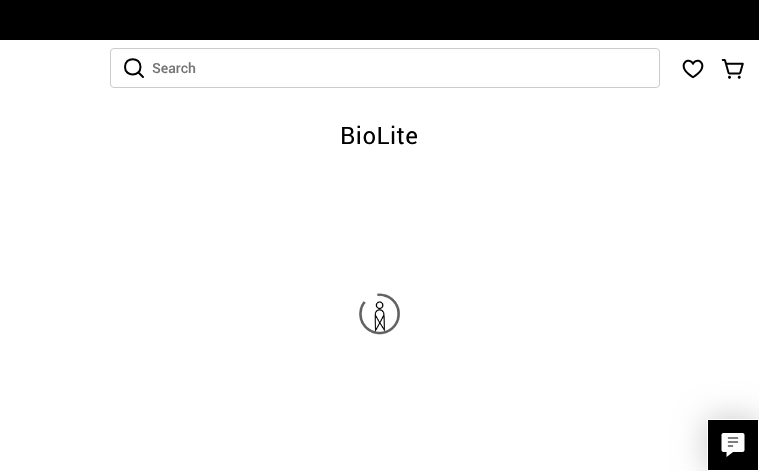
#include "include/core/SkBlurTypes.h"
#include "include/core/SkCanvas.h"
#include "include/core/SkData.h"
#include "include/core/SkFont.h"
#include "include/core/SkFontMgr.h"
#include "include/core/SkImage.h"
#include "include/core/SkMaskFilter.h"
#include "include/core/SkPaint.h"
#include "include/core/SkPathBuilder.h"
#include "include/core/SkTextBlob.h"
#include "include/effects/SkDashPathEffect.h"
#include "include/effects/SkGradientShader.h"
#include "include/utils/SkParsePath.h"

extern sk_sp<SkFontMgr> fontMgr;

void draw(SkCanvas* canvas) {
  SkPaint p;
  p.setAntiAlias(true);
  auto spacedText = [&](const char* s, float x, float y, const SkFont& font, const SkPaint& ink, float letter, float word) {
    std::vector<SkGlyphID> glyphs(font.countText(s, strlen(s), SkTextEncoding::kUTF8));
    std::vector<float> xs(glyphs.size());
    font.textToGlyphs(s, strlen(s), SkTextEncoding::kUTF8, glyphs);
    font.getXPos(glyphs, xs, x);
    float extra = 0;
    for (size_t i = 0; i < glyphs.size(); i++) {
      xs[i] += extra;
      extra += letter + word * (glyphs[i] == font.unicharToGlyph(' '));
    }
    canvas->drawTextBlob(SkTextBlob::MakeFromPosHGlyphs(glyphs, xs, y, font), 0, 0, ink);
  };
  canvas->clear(SK_ColorWHITE);
  p.setColor(SK_ColorBLACK);
  canvas->drawRect(SkRect::MakeLTRB(0, 0, 759, 40), p);
  p.setStyle(SkPaint::kStroke_Style);
  p.setStrokeWidth(1);
  p.setColor(SkColorSetRGB(204, 204, 204));
  canvas->drawRoundRect(SkRect::MakeLTRB(110.5f, 48.5f, 659.5f, 87.5f), 3.5f, 3.5f, p);
  p.setStrokeWidth(2);
  p.setStrokeCap(SkPaint::kRound_Cap);
  p.setStrokeJoin(SkPaint::kRound_Join);
  p.setColor(SK_ColorBLACK);
  canvas->drawPath(SkPathBuilder().moveTo(138.5f, 72.5f).lineTo(143, 77).moveTo(140.5f, 67).cubicTo(140.5f, 77, 125, 77, 125, 67).cubicTo(125, 56.5f, 140.5f, 56.5f, 140.5f, 67).close().detach(), p);
  canvas->drawImageRect(SkImages::DeferredFromEncodedData(SkData::MakeFromFileName("images/1.png")), SkRect::MakeLTRB(682, 59, 704, 79), SkSamplingOptions());
  canvas->drawImageRect(SkImages::DeferredFromEncodedData(SkData::MakeFromFileName("images/2.png")), SkRect::MakeLTRB(721, 59, 744, 79), SkSamplingOptions());
  canvas->drawImageRect(SkImages::DeferredFromEncodedData(SkData::MakeFromFileName("images/3.png")), SkRect::MakeLTRB(359, 293, 400, 335), SkSamplingOptions());
  p.setStyle(SkPaint::kFill_Style);
  p.setColor(SkColorSetARGB(51, 0, 0, 0));
  p.setMaskFilter(SkMaskFilter::MakeBlur(kNormal_SkBlurStyle, 15));
  canvas->drawRect(SkRect::MakeLTRB(706, 418, 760, 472), p);
  p.setMaskFilter(nullptr);
  p.setColor(SK_ColorBLACK);
  canvas->drawRect(SkRect::MakeLTRB(707.5f, 419.5f, 758.5f, 470.5f), p);
  p.setStyle(SkPaint::kStroke_Style);
  p.setStrokeWidth(1);
  p.setStrokeCap(SkPaint::kButt_Cap);
  p.setStrokeJoin(SkPaint::kMiter_Join);
  p.setColor(SK_ColorWHITE);
  canvas->drawRect(SkRect::MakeLTRB(707.5f, 419.5f, 758.5f, 470.5f), p);
  canvas->drawImageRect(SkImages::DeferredFromEncodedData(SkData::MakeFromFileName("images/4.png")), SkRect::MakeLTRB(721, 433, 745, 457), SkSamplingOptions());
  SkFont font1(fontMgr->matchFamilyStyle("Roboto", SkFontStyle(500, SkFontStyle::kNormal_Width, SkFontStyle::kUpright_Slant)), 14);
  font1.setSubpixel(true);
  p.setStyle(SkPaint::kFill_Style);
  p.setColor(SkColorSetRGB(117, 117, 117));
  canvas->drawString("Search", 152, 73, font1, p);
  SkFont font2(fontMgr->matchFamilyStyle("Roboto", SkFontStyle::Normal()), 24);
  font2.setSubpixel(true);
  p.setColor(SK_ColorBLACK);
  spacedText("BioLite", 340, 144, font2, p, 0.5f, 0);
}
